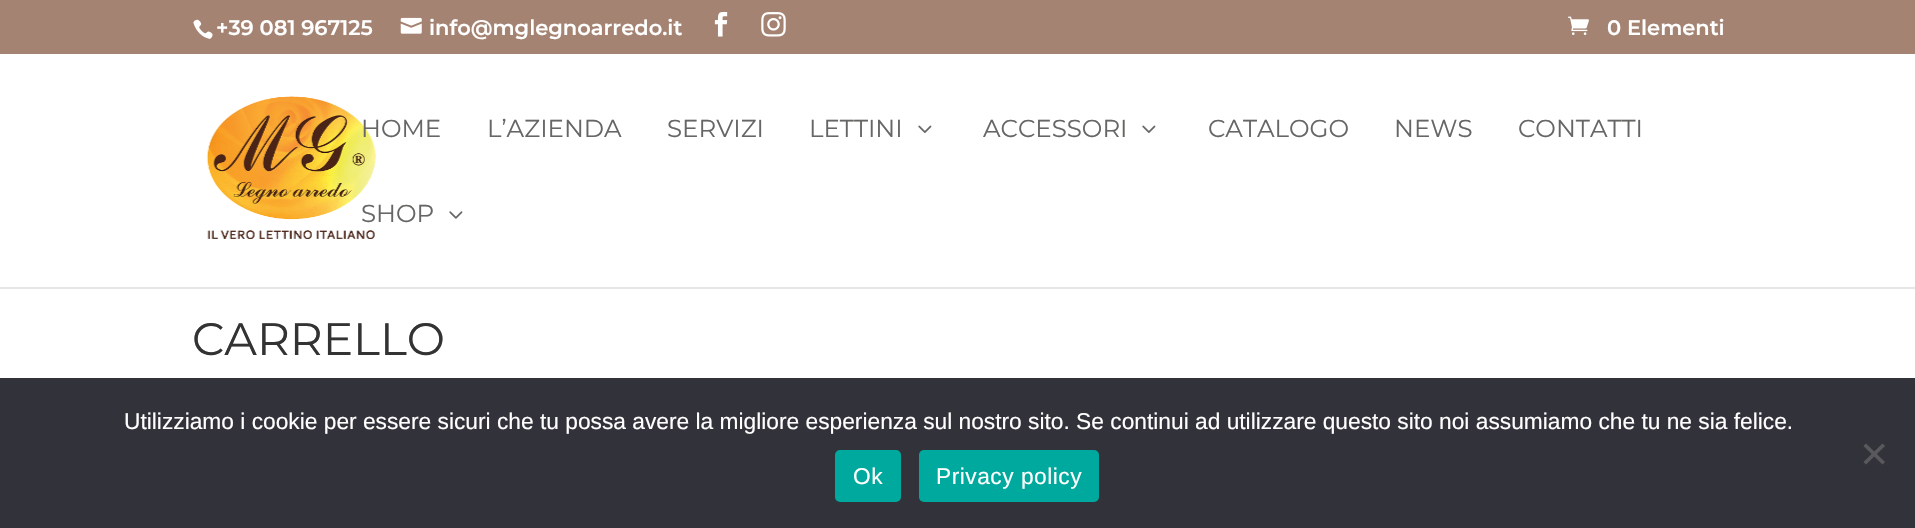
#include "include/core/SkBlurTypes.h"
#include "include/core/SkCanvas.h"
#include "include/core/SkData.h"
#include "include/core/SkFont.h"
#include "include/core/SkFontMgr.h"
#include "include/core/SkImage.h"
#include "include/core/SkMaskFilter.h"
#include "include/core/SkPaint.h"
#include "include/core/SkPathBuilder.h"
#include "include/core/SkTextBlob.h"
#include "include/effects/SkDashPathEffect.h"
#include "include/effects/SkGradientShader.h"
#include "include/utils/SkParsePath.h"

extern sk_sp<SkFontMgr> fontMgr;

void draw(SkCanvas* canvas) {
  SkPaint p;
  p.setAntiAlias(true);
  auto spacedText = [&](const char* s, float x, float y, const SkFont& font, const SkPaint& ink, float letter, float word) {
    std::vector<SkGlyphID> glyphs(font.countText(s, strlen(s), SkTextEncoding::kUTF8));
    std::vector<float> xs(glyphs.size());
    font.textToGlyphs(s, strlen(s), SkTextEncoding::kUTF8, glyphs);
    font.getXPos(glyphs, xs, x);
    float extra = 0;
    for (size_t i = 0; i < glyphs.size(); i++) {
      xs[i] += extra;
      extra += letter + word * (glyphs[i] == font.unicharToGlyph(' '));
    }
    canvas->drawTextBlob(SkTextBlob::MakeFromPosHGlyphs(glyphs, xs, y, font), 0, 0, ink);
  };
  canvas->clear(SK_ColorWHITE);
  p.setColor(SkColorSetRGB(165, 131, 114));
  canvas->drawRect(SkRect::MakeLTRB(0, 0, 1915, 54), p);
  canvas->drawImageRect(SkImages::DeferredFromEncodedData(SkData::MakeFromFileName("images/1.png")), SkRect::MakeLTRB(193, 19, 213, 39), SkSamplingOptions());
  canvas->drawImageRect(SkImages::DeferredFromEncodedData(SkData::MakeFromFileName("images/2.png")), SkRect::MakeLTRB(400, 17, 422, 34), SkSamplingOptions());
  canvas->drawImageRect(SkImages::DeferredFromEncodedData(SkData::MakeFromFileName("images/3.png")), SkRect::MakeLTRB(714, 12, 728, 37), SkSamplingOptions());
  canvas->drawImageRect(SkImages::DeferredFromEncodedData(SkData::MakeFromFileName("images/4.png")), SkRect::MakeLTRB(761, 12, 786, 37), SkSamplingOptions());
  canvas->drawImageRect(SkImages::DeferredFromEncodedData(SkData::MakeFromFileName("images/5.png")), SkRect::MakeLTRB(1568, 16, 1589, 35), SkSamplingOptions());
  p.setColor(SkColorSetRGB(230, 230, 230));
  canvas->drawRect(SkRect::MakeLTRB(0, 287, 1915, 289), p);
  canvas->drawImageRect(SkImages::DeferredFromEncodedData(SkData::MakeFromFileName("images/6.png")), SkRect::MakeLTRB(206, 96, 376, 239), SkSamplingOptions());
  canvas->drawImageRect(SkImages::DeferredFromEncodedData(SkData::MakeFromFileName("images/7.png")), SkRect::MakeLTRB(918, 125, 932, 133), SkSamplingOptions());
  canvas->drawImageRect(SkImages::DeferredFromEncodedData(SkData::MakeFromFileName("images/7.png")), SkRect::MakeLTRB(1142, 125, 1156, 133), SkSamplingOptions());
  canvas->drawImageRect(SkImages::DeferredFromEncodedData(SkData::MakeFromFileName("images/8.png")), SkRect::MakeLTRB(449, 211, 463, 219), SkSamplingOptions());
  p.setColor(SkColorSetRGB(50, 50, 58));
  canvas->drawRect(SkRect::MakeLTRB(0, 378, 1915, 528), p);
  p.setColor(SkColorSetRGB(89, 89, 93));
  canvas->drawPath(SkPathBuilder().moveTo(1882.5f, 443.5f).lineTo(1885, 446).lineTo(1866, 464.5f).lineTo(1863.5f, 462).close().detach(), p);
  canvas->drawPath(SkPathBuilder().moveTo(1863.5f, 446).lineTo(1866, 443.5f).lineTo(1885, 462).lineTo(1882.5f, 464.5f).close().detach(), p);
  p.setColor(SkColorSetRGB(0, 169, 157));
  canvas->drawRoundRect(SkRect::MakeLTRB(835, 450, 901, 502), 5, 5, p);
  canvas->drawRoundRect(SkRect::MakeLTRB(919, 450, 1099, 502), 5, 5, p);
  SkFont font1(fontMgr->matchFamilyStyle("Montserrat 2", SkFontStyle(100, SkFontStyle::kNormal_Width, SkFontStyle::kUpright_Slant)), 21);
  font1.setSubpixel(true);
  p.setColor(SK_ColorWHITE);
  canvas->drawString("+39 081 967125", 216, 35, font1, p);
  canvas->drawString("info@mglegnoarredo.it", 429, 35, font1, p);
  canvas->drawString("0 Elementi", 1607, 35, font1, p);
  SkFont font2(fontMgr->matchFamilyStyle("Montserrat", SkFontStyle(100, SkFontStyle::kNormal_Width, SkFontStyle::kUpright_Slant)), 24.5f);
  font2.setSubpixel(true);
  p.setColor(SkColorSetRGB(102, 102, 100));
  canvas->drawString("HOME", 361, 137, font2, p);
  canvas->drawString("L’AZIENDA", 487, 137, font2, p);
  canvas->drawString("SERVIZI", 667, 137, font2, p);
  canvas->drawString("LETTINI", 809, 137, font2, p);
  canvas->drawString("ACCESSORI", 983, 137, font2, p);
  canvas->drawString("CATALOGO", 1208, 137, font2, p);
  canvas->drawString("NEWS", 1394, 137, font2, p);
  canvas->drawString("CONTATTI", 1518, 137, font2, p);
  canvas->drawString("SHOP", 361, 222, font2, p);
  SkFont font3(fontMgr->matchFamilyStyle("Montserrat", SkFontStyle(100, SkFontStyle::kNormal_Width, SkFontStyle::kUpright_Slant)), 45.5f);
  font3.setSubpixel(true);
  p.setColor(SkColorSetRGB(51, 51, 51));
  canvas->drawString("CARRELLO", 192, 355, font3, p);
  SkFont font4(fontMgr->matchFamilyStyle("Liberation Sans", SkFontStyle::Normal()), 22.75f);
  font4.setSubpixel(true);
  p.setColor(SK_ColorWHITE);
  canvas->drawString("Utilizziamo i cookie per essere sicuri che tu possa avere la migliore esperienza sul nostro sito. Se continui ad utilizzare questo sito noi assumiamo che tu ne sia felice.", 124, 429, font4, p);
  spacedText("Ok", 853, 484, font4, p, 0.5f, 0);
  spacedText("Privacy policy", 936, 484, font4, p, 0.5f, 0);
}
